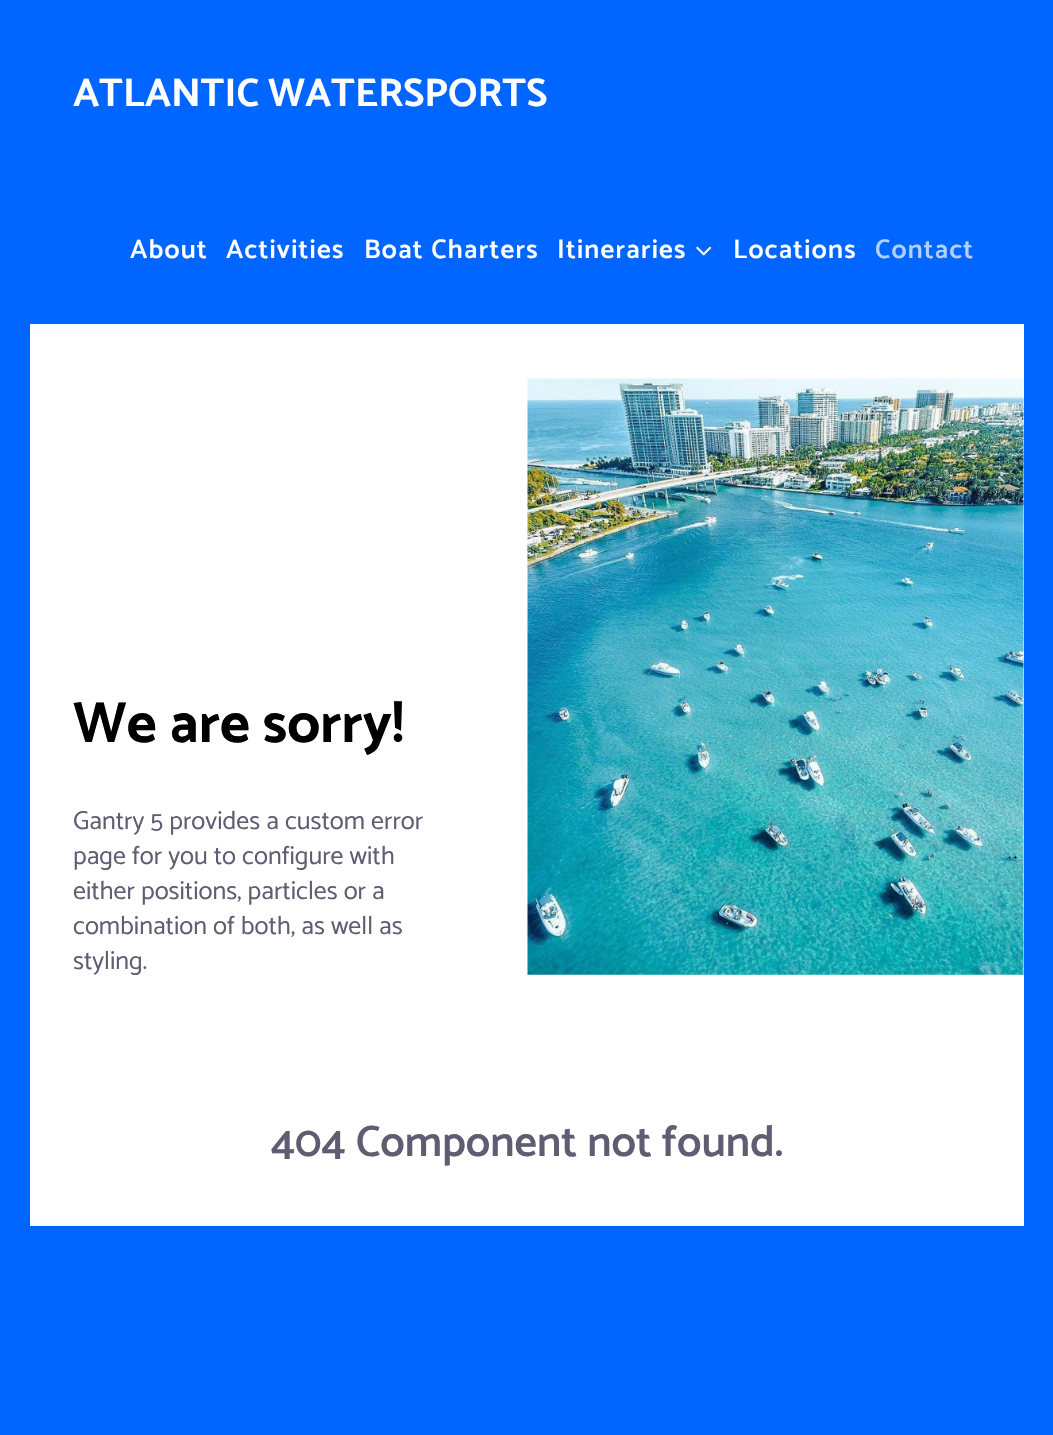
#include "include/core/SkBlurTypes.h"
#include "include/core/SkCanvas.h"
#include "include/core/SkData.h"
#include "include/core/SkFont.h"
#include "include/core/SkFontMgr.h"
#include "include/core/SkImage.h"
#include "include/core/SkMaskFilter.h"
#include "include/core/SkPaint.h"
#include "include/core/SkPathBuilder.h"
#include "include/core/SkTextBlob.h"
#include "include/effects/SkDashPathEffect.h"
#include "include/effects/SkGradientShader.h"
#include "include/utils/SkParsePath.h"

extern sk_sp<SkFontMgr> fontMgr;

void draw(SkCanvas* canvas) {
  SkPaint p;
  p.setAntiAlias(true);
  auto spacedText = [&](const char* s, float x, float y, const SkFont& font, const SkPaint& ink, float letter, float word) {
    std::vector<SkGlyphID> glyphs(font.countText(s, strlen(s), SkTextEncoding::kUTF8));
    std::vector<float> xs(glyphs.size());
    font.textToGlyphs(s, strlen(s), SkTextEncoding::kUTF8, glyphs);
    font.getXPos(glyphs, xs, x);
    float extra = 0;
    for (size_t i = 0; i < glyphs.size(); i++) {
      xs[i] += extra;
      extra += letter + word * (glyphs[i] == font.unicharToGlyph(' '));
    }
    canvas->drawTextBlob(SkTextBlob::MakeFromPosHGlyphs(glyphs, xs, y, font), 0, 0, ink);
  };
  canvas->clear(SkColorSetRGB(0, 102, 255));
  canvas->drawImageRect(SkImages::DeferredFromEncodedData(SkData::MakeFromFileName("images/1.png")), SkRect::MakeLTRB(696, 246, 712, 256), SkSamplingOptions());
  p.setColor(SK_ColorWHITE);
  canvas->drawRect(SkRect::MakeLTRB(30, 324, 1024, 1226), p);
  canvas->drawImageRect(SkImages::DeferredFromEncodedData(SkData::MakeFromFileName("images/2.png")), SkRect::MakeLTRB(527, 378, 1024, 975), SkSamplingOptions());
  SkFont font1(fontMgr->matchFamilyStyle("Catamaran", SkFontStyle::Bold()), 40);
  font1.setSubpixel(true);
  canvas->drawString("ATLANTIC WATERSPORTS", 73, 106, font1, p);
  SkFont font2(fontMgr->matchFamilyStyle("Catamaran", SkFontStyle(600, SkFontStyle::kNormal_Width, SkFontStyle::kUpright_Slant)), 27);
  font2.setSubpixel(true);
  spacedText("About", 130, 258, font2, p, 1.25f, 0);
  spacedText("Activities", 226, 258, font2, p, 1.25f, 0);
  spacedText("Boat Charters", 364, 258, font2, p, 1.25f, 0);
  spacedText("Itineraries", 557, 258, font2, p, 1.25f, 0);
  spacedText("Locations", 733, 258, font2, p, 1.25f, 0);
  p.setColor(SkColorSetRGB(179, 209, 255));
  spacedText("Contact", 875, 258, font2, p, 1.25f, 0);
  SkFont font3(fontMgr->matchFamilyStyle("Catamaran", SkFontStyle::Bold()), 58);
  font3.setSubpixel(true);
  p.setColor(SK_ColorBLACK);
  canvas->drawString("We are sorry!", 73, 742, font3, p);
  SkFont font4(fontMgr->matchFamilyStyle("Catamaran", SkFontStyle::Normal()), 26);
  font4.setSubpixel(true);
  p.setColor(SkColorSetRGB(96, 92, 114));
  canvas->drawString("Gantry 5 provides a custom error", 73, 829, font4, p);
  canvas->drawString("page for you to configure with", 73, 864, font4, p);
  canvas->drawString("either positions, particles or a", 73, 899, font4, p);
  canvas->drawString("combination of both, as well as", 73, 934, font4, p);
  canvas->drawString("styling.", 73, 969, font4, p);
  SkFont font5(fontMgr->matchFamilyStyle("Catamaran", SkFontStyle(600, SkFontStyle::kNormal_Width, SkFontStyle::kUpright_Slant)), 44);
  font5.setSubpixel(true);
  canvas->drawString("404 Component not found.", 271, 1156, font5, p);
}
